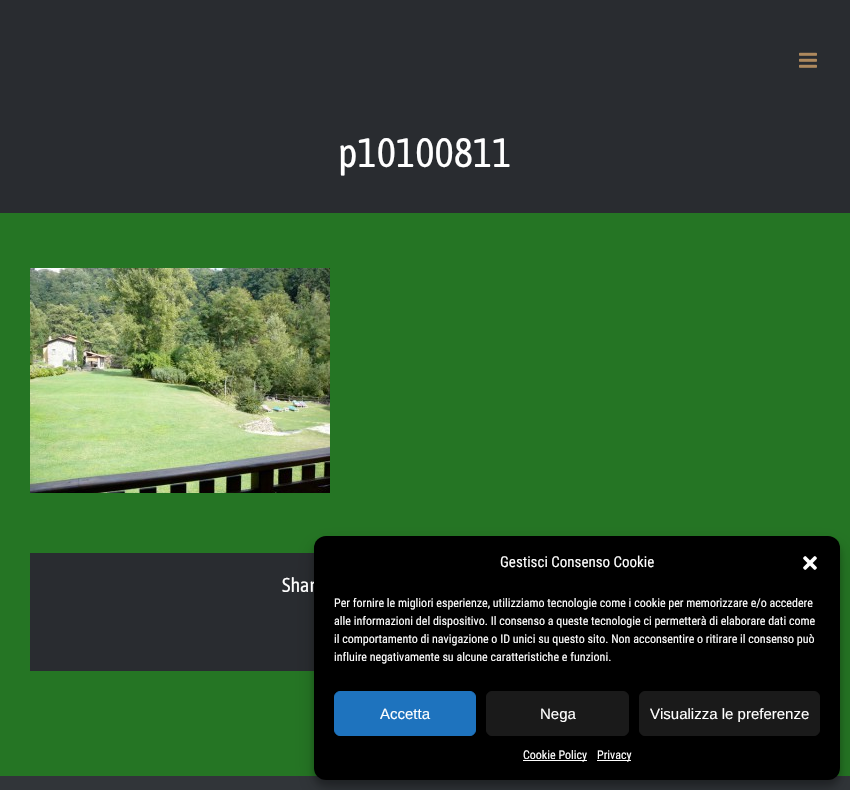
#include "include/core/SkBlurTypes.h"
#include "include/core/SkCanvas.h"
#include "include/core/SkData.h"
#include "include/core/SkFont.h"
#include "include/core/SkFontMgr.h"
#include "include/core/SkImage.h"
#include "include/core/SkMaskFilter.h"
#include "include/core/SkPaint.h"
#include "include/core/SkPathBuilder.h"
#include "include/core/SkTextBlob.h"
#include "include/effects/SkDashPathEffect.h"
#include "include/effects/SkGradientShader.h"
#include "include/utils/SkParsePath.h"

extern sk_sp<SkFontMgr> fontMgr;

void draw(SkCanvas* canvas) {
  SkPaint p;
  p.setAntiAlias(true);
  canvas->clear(SkColorSetRGB(37, 117, 36));
  p.setColor(SkColorSetRGB(41, 44, 48));
  canvas->drawRect(SkRect::MakeLTRB(0, 0, 850, 213), p);
  canvas->drawImageRect(SkImages::DeferredFromEncodedData(SkData::MakeFromFileName("images/1.png")), SkRect::MakeLTRB(799, 52, 817, 68), SkSamplingOptions());
  canvas->drawImageRect(SkImages::DeferredFromEncodedData(SkData::MakeFromFileName("images/2.png")), SkRect::MakeLTRB(30, 268, 330, 493), SkSamplingOptions());
  canvas->drawRect(SkRect::MakeLTRB(30, 553, 314, 671), p);
  p.setColor(SkColorSetRGB(49, 53, 57));
  canvas->drawRect(SkRect::MakeLTRB(0, 776, 850, 790), p);
  p.setColor(SkColorSetARGB(59, 0, 0, 0));
  p.setMaskFilter(SkMaskFilter::MakeBlur(kNormal_SkBlurStyle, 3));
  canvas->drawRoundRect(SkRect::MakeLTRB(314, 542, 840, 786), 12, 12, p);
  p.setMaskFilter(nullptr);
  p.setColor(SkColorSetARGB(48, 0, 0, 0));
  p.setMaskFilter(SkMaskFilter::MakeBlur(kNormal_SkBlurStyle, 10));
  canvas->drawRoundRect(SkRect::MakeLTRB(314, 546, 840, 790), 12, 12, p);
  p.setMaskFilter(nullptr);
  SkFont font1(fontMgr->matchFamilyStyle("Asap Condensed", SkFontStyle::Normal()), 41);
  font1.setSubpixel(true);
  p.setColor(SK_ColorWHITE);
  canvas->drawString("p10100811", 338, 167, font1, p);
  SkFont font2(fontMgr->matchFamilyStyle("Asap Condensed", SkFontStyle::Normal()), 20);
  font2.setSubpixel(true);
  canvas->drawString("Shar", 282, 592, font2, p);
  p.setColor(SK_ColorBLACK);
  canvas->drawRoundRect(SkRect::MakeLTRB(314, 536, 840, 780), 12, 12, p);
  SkFont font3(fontMgr->matchFamilyStyle("Roboto Condensed", SkFontStyle::Normal()), 15);
  font3.setSubpixel(true);
  p.setColor(SK_ColorWHITE);
  canvas->drawString("Gestisci Consenso Cookie", 500, 567, font3, p);
  canvas->drawImageRect(SkImages::DeferredFromEncodedData(SkData::MakeFromFileName("images/3.png")), SkRect::MakeLTRB(803, 556, 817, 570), SkSamplingOptions());
  SkFont font4(fontMgr->matchFamilyStyle("Roboto Condensed", SkFontStyle::Normal()), 12);
  font4.setSubpixel(true);
  canvas->drawString("Per fornire le migliori esperienze, utilizziamo tecnologie come i cookie per memorizzare e/o accedere", 334, 607, font4, p);
  canvas->drawString("alle informazioni del dispositivo. Il consenso a queste tecnologie ci permetterà di elaborare dati come", 334, 625, font4, p);
  canvas->drawString("il comportamento di navigazione o ID unici su questo sito. Non acconsentire o ritirare il consenso può", 334, 643, font4, p);
  canvas->drawString("influire negativamente su alcune caratteristiche e funzioni.", 334, 661, font4, p);
  p.setColor(SkColorSetRGB(30, 115, 190));
  canvas->drawRoundRect(SkRect::MakeLTRB(334.5f, 691.5f, 475.5f, 735.5f), 5.5f, 5.5f, p);
  p.setStyle(SkPaint::kStroke_Style);
  p.setStrokeWidth(1);
  canvas->drawRoundRect(SkRect::MakeLTRB(334.5f, 691.5f, 475.5f, 735.5f), 5.5f, 5.5f, p);
  SkFont font5(fontMgr->matchFamilyStyle("Liberation Sans", SkFontStyle::Normal()), 15);
  font5.setSubpixel(true);
  p.setStyle(SkPaint::kFill_Style);
  p.setColor(SK_ColorWHITE);
  canvas->drawString("Accetta", 380, 719, font5, p);
  p.setColor(SkColorSetRGB(26, 26, 26));
  canvas->drawRoundRect(SkRect::MakeLTRB(486.5f, 691.5f, 628.5f, 735.5f), 5.5f, 5.5f, p);
  p.setStyle(SkPaint::kStroke_Style);
  canvas->drawRoundRect(SkRect::MakeLTRB(486.5f, 691.5f, 628.5f, 735.5f), 5.5f, 5.5f, p);
  p.setStyle(SkPaint::kFill_Style);
  p.setColor(SK_ColorWHITE);
  canvas->drawString("Nega", 540, 719, font5, p);
  p.setColor(SkColorSetRGB(26, 26, 26));
  canvas->drawRoundRect(SkRect::MakeLTRB(639.5f, 691.5f, 819.5f, 735.5f), 5.5f, 5.5f, p);
  p.setStyle(SkPaint::kStroke_Style);
  canvas->drawRoundRect(SkRect::MakeLTRB(639.5f, 691.5f, 819.5f, 735.5f), 5.5f, 5.5f, p);
  p.setStyle(SkPaint::kFill_Style);
  p.setColor(SK_ColorWHITE);
  canvas->drawString("Visualizza le preferenze", 650, 719, font5, p);
  canvas->drawRect(SkRect::MakeLTRB(523, 760, 587, 761), p);
  canvas->drawString("Cookie Policy", 523, 759, font4, p);
  canvas->drawRect(SkRect::MakeLTRB(597, 760, 631, 761), p);
  canvas->drawString("Privacy", 597, 759, font4, p);
}
